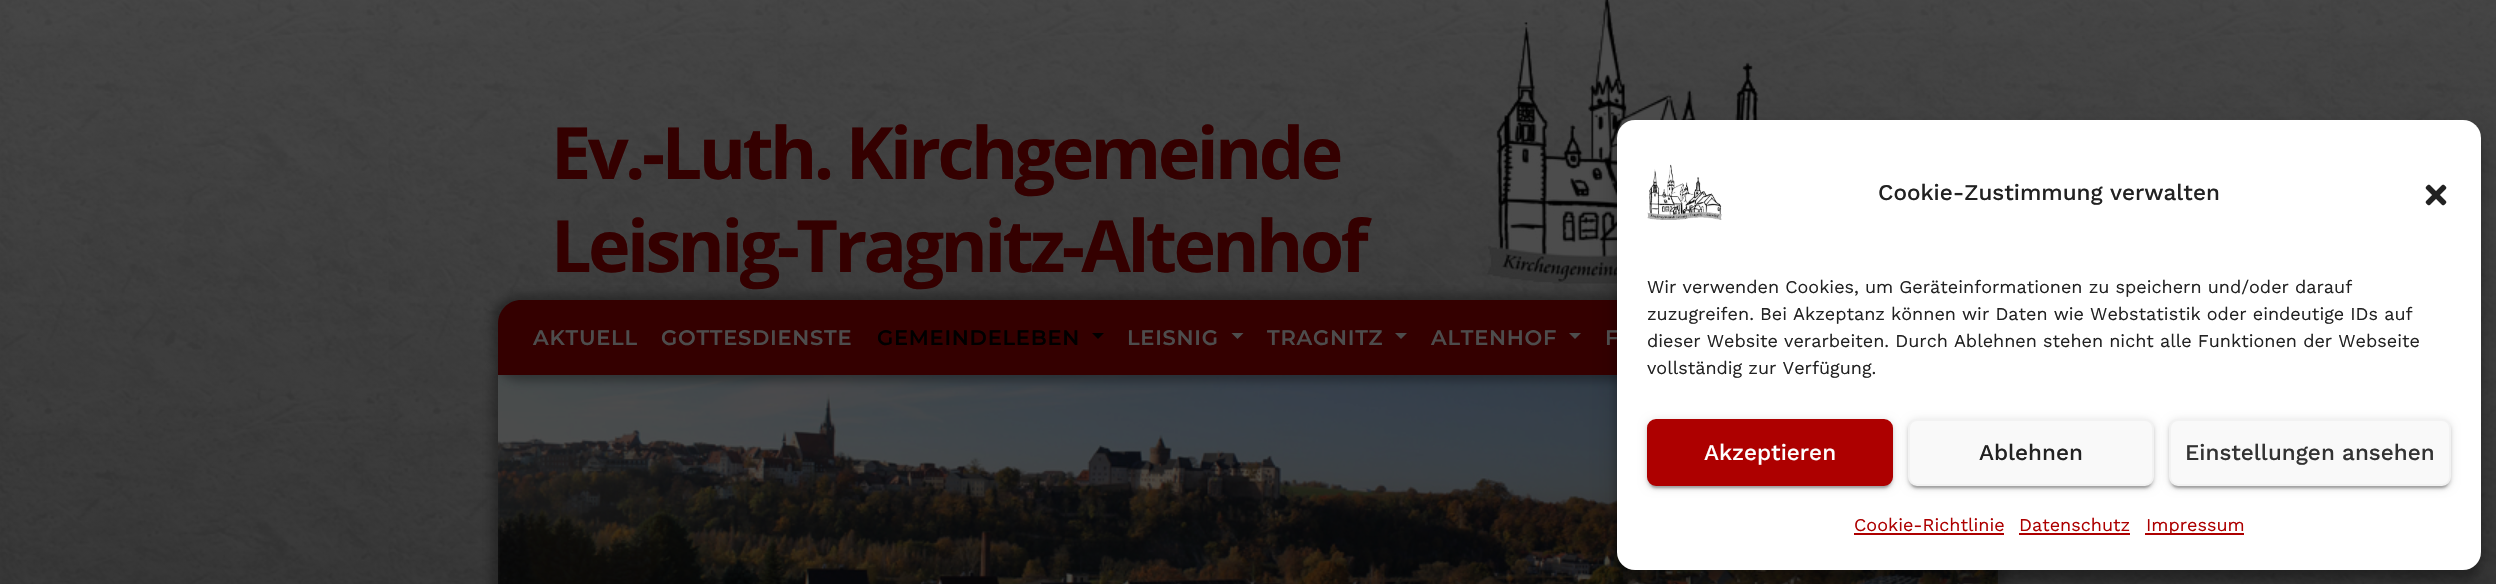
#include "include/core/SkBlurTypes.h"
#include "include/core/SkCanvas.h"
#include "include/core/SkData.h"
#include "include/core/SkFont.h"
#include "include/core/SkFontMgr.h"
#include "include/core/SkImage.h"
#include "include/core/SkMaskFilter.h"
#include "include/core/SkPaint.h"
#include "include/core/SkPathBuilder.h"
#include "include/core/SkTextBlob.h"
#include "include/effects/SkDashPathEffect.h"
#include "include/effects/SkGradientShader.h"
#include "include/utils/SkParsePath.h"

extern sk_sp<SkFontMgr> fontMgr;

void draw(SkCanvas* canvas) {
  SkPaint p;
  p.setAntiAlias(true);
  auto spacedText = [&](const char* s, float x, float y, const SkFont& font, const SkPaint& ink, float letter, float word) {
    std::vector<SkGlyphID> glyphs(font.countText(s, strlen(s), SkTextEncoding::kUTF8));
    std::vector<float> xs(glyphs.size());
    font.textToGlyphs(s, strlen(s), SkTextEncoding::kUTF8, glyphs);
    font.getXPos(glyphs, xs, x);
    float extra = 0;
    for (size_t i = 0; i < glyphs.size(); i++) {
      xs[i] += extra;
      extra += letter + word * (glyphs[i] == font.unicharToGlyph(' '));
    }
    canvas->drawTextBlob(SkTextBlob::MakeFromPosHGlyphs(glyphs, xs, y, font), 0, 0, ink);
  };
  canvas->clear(SK_ColorWHITE);
  canvas->drawImageRect(SkImages::DeferredFromEncodedData(SkData::MakeFromFileName("images/1.png")), SkRect::MakeLTRB(0, 0, 2496, 584), SkSamplingOptions());
  canvas->drawImageRect(SkImages::DeferredFromEncodedData(SkData::MakeFromFileName("images/2.png")), SkRect::MakeLTRB(1486, 0, 1759, 284), SkSamplingOptions());
  p.setColor(SkColorSetARGB(77, 0, 0, 0));
  p.setMaskFilter(SkMaskFilter::MakeBlur(kNormal_SkBlurStyle, 5));
  canvas->drawRect(SkRect::MakeLTRB(492, 369, 2004, 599), p);
  p.setMaskFilter(nullptr);
  canvas->drawImageRect(SkImages::DeferredFromEncodedData(SkData::MakeFromFileName("images/3.png")), SkRect::MakeLTRB(498, 375, 1998, 584), SkSamplingOptions());
  p.setMaskFilter(SkMaskFilter::MakeBlur(kNormal_SkBlurStyle, 5));
  canvas->drawRoundRect(SkRect::MakeLTRB(492, 294, 2004, 381), 29, 29, p);
  p.setMaskFilter(nullptr);
  p.setColor(SkColorSetRGB(52, 0, 0));
  canvas->drawPath(SkPathBuilder().moveTo(521, 300).lineTo(1975, 300).cubicTo(1987.5f, 300, 1998, 310.5f, 1998, 323).lineTo(1998, 375).lineTo(498, 375).lineTo(498, 323).cubicTo(498, 310.5f, 508.5f, 300, 521, 300).close().detach(), p);
  p.setColor(SK_ColorBLACK);
  canvas->drawPath(SkPathBuilder().moveTo(1092, 333).lineTo(1104, 333).lineTo(1098, 339).close().detach(), p);
  p.setColor(SkColorSetRGB(77, 77, 77));
  canvas->drawPath(SkPathBuilder().moveTo(1231.5f, 333).lineTo(1243.5f, 333).lineTo(1237.5f, 339).close().detach(), p);
  canvas->drawPath(SkPathBuilder().moveTo(1395, 333).lineTo(1407, 333).lineTo(1401, 339).close().detach(), p);
  canvas->drawPath(SkPathBuilder().moveTo(1569, 333).lineTo(1581, 333).lineTo(1575, 339).close().detach(), p);
  p.setColor(SkColorSetARGB(59, 0, 0, 0));
  p.setMaskFilter(SkMaskFilter::MakeBlur(kNormal_SkBlurStyle, 4.5f));
  canvas->drawRoundRect(SkRect::MakeLTRB(1617, 129, 2481, 579), 18, 18, p);
  p.setMaskFilter(nullptr);
  p.setColor(SkColorSetARGB(48, 0, 0, 0));
  p.setMaskFilter(SkMaskFilter::MakeBlur(kNormal_SkBlurStyle, 15));
  canvas->drawRoundRect(SkRect::MakeLTRB(1617, 135, 2481, 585), 18, 18, p);
  p.setMaskFilter(nullptr);
  SkFont font1(fontMgr->matchFamilyStyle("Open Sans", SkFontStyle::Bold()), 72);
  font1.setSubpixel(true);
  p.setColor(SkColorSetRGB(52, 0, 0));
  spacedText("Ev.-Luth. Kirchgemeinde", 551, 179, font1, p, -3.6f, 0);
  spacedText("Leisnig-Tragnitz-Altenhof", 551, 272, font1, p, -3.6f, 0);
  SkFont font2(fontMgr->matchFamilyStyle("Montserrat", SkFontStyle(600, SkFontStyle::kNormal_Width, SkFontStyle::kUpright_Slant)), 21);
  font2.setSubpixel(true);
  p.setColor(SkColorSetRGB(77, 77, 77));
  spacedText("AKTUELL", 533, 345, font2, p, 0.75f, 0);
  spacedText("GOTTESDIENSTE", 661, 345, font2, p, 0.75f, 0);
  p.setColor(SK_ColorBLACK);
  spacedText("GEMEINDELEBEN", 877, 345, font2, p, 0.75f, 0);
  p.setColor(SkColorSetRGB(77, 77, 77));
  spacedText("LEISNIG", 1127, 345, font2, p, 0.75f, 0);
  spacedText("TRAGNITZ", 1267, 345, font2, p, 0.75f, 0);
  spacedText("ALTENHOF", 1431, 345, font2, p, 0.75f, 0);
  spacedText("F", 1605, 345, font2, p, 0.75f, 0);
  p.setColor(SK_ColorWHITE);
  canvas->drawRoundRect(SkRect::MakeLTRB(1617, 120, 2481, 570), 18, 18, p);
  canvas->drawImageRect(SkImages::DeferredFromEncodedData(SkData::MakeFromFileName("images/4.png")), SkRect::MakeLTRB(1647, 164, 1722, 220), SkSamplingOptions());
  SkFont font3(fontMgr->matchFamilyStyle("Work Sans", SkFontStyle(500, SkFontStyle::kNormal_Width, SkFontStyle::kUpright_Slant)), 22.5f);
  font3.setSubpixel(true);
  p.setColor(SkColorSetRGB(34, 34, 34));
  canvas->drawString("Cookie-Zustimmung verwalten", 1878, 200, font3, p);
  canvas->drawImageRect(SkImages::DeferredFromEncodedData(SkData::MakeFromFileName("images/5.png")), SkRect::MakeLTRB(2425, 184, 2447, 206), SkSamplingOptions());
  SkFont font4(fontMgr->matchFamilyStyle("Work Sans", SkFontStyle::Normal()), 18);
  font4.setSubpixel(true);
  canvas->drawString("Wir verwenden Cookies, um Geräteinformationen zu speichern und/oder darauf", 1647, 293, font4, p);
  canvas->drawString("zuzugreifen. Bei Akzeptanz können wir Daten wie Webstatistik oder eindeutige IDs auf", 1647, 320, font4, p);
  canvas->drawString("dieser Website verarbeiten. Durch Ablehnen stehen nicht alle Funktionen der Webseite", 1647, 347, font4, p);
  canvas->drawString("vollständig zur Verfügung.", 1647, 374, font4, p);
  p.setColor(SkColorSetARGB(31, 0, 0, 0));
  p.setMaskFilter(SkMaskFilter::MakeBlur(kNormal_SkBlurStyle, 4));
  canvas->drawRoundRect(SkRect::MakeLTRB(1647, 420, 1893, 488), 9, 9, p);
  p.setMaskFilter(nullptr);
  p.setColor(SkColorSetARGB(51, 0, 0, 0));
  p.setMaskFilter(SkMaskFilter::MakeBlur(kNormal_SkBlurStyle, 1));
  canvas->drawRoundRect(SkRect::MakeLTRB(1650, 426, 1890, 488), 6, 6, p);
  p.setMaskFilter(nullptr);
  p.setColor(SkColorSetARGB(36, 0, 0, 0));
  p.setMaskFilter(SkMaskFilter::MakeBlur(kNormal_SkBlurStyle, 1.5f));
  canvas->drawRoundRect(SkRect::MakeLTRB(1647, 422, 1893, 489), 9, 9, p);
  p.setMaskFilter(nullptr);
  p.setColor(SkColorSetRGB(173, 0, 0));
  canvas->drawRoundRect(SkRect::MakeLTRB(1648, 420, 1892, 485), 8, 8, p);
  p.setStyle(SkPaint::kStroke_Style);
  p.setStrokeWidth(2);
  canvas->drawRoundRect(SkRect::MakeLTRB(1648, 420, 1892, 485), 8, 8, p);
  p.setStyle(SkPaint::kFill_Style);
  p.setColor(SK_ColorWHITE);
  canvas->drawString("Akzeptieren", 1704, 460, font3, p);
  p.setColor(SkColorSetARGB(31, 0, 0, 0));
  p.setMaskFilter(SkMaskFilter::MakeBlur(kNormal_SkBlurStyle, 4));
  canvas->drawRoundRect(SkRect::MakeLTRB(1908, 420, 2154, 488), 9, 9, p);
  p.setMaskFilter(nullptr);
  p.setColor(SkColorSetARGB(51, 0, 0, 0));
  p.setMaskFilter(SkMaskFilter::MakeBlur(kNormal_SkBlurStyle, 1));
  canvas->drawRoundRect(SkRect::MakeLTRB(1911, 426, 2151, 488), 6, 6, p);
  p.setMaskFilter(nullptr);
  p.setColor(SkColorSetARGB(36, 0, 0, 0));
  p.setMaskFilter(SkMaskFilter::MakeBlur(kNormal_SkBlurStyle, 1.5f));
  canvas->drawRoundRect(SkRect::MakeLTRB(1908, 422, 2154, 489), 9, 9, p);
  p.setMaskFilter(nullptr);
  p.setColor(SkColorSetRGB(249, 249, 249));
  canvas->drawRoundRect(SkRect::MakeLTRB(1909, 420, 2153, 485), 8, 8, p);
  p.setStyle(SkPaint::kStroke_Style);
  p.setColor(SkColorSetRGB(242, 242, 242));
  canvas->drawRoundRect(SkRect::MakeLTRB(1909, 420, 2153, 485), 8, 8, p);
  p.setStyle(SkPaint::kFill_Style);
  p.setColor(SkColorSetRGB(34, 34, 34));
  canvas->drawString("Ablehnen", 1979, 460, font3, p);
  p.setColor(SkColorSetARGB(31, 0, 0, 0));
  p.setMaskFilter(SkMaskFilter::MakeBlur(kNormal_SkBlurStyle, 4));
  canvas->drawRoundRect(SkRect::MakeLTRB(2169, 420, 2451, 488), 9, 9, p);
  p.setMaskFilter(nullptr);
  p.setColor(SkColorSetARGB(51, 0, 0, 0));
  p.setMaskFilter(SkMaskFilter::MakeBlur(kNormal_SkBlurStyle, 1));
  canvas->drawRoundRect(SkRect::MakeLTRB(2172, 426, 2448, 488), 6, 6, p);
  p.setMaskFilter(nullptr);
  p.setColor(SkColorSetARGB(36, 0, 0, 0));
  p.setMaskFilter(SkMaskFilter::MakeBlur(kNormal_SkBlurStyle, 1.5f));
  canvas->drawRoundRect(SkRect::MakeLTRB(2169, 422, 2451, 489), 9, 9, p);
  p.setMaskFilter(nullptr);
  p.setColor(SkColorSetRGB(249, 249, 249));
  canvas->drawRoundRect(SkRect::MakeLTRB(2170, 420, 2450, 485), 8, 8, p);
  p.setStyle(SkPaint::kStroke_Style);
  p.setColor(SkColorSetRGB(242, 242, 242));
  canvas->drawRoundRect(SkRect::MakeLTRB(2170, 420, 2450, 485), 8, 8, p);
  p.setStyle(SkPaint::kFill_Style);
  p.setColor(SkColorSetRGB(51, 51, 51));
  canvas->drawString("Einstellungen ansehen", 2185, 460, font3, p);
  p.setColor(SkColorSetRGB(173, 0, 0));
  canvas->drawString("Cookie-Richtlinie", 1854, 531, font4, p);
  canvas->drawRect(SkRect::MakeLTRB(1854, 533, 2004, 535), p);
  canvas->drawString("Datenschutz", 2019, 531, font4, p);
  canvas->drawRect(SkRect::MakeLTRB(2019, 533, 2130, 535), p);
  canvas->drawRect(SkRect::MakeLTRB(2145, 533, 2244, 535), p);
  canvas->drawString("Impressum", 2146, 531, font4, p);
}
